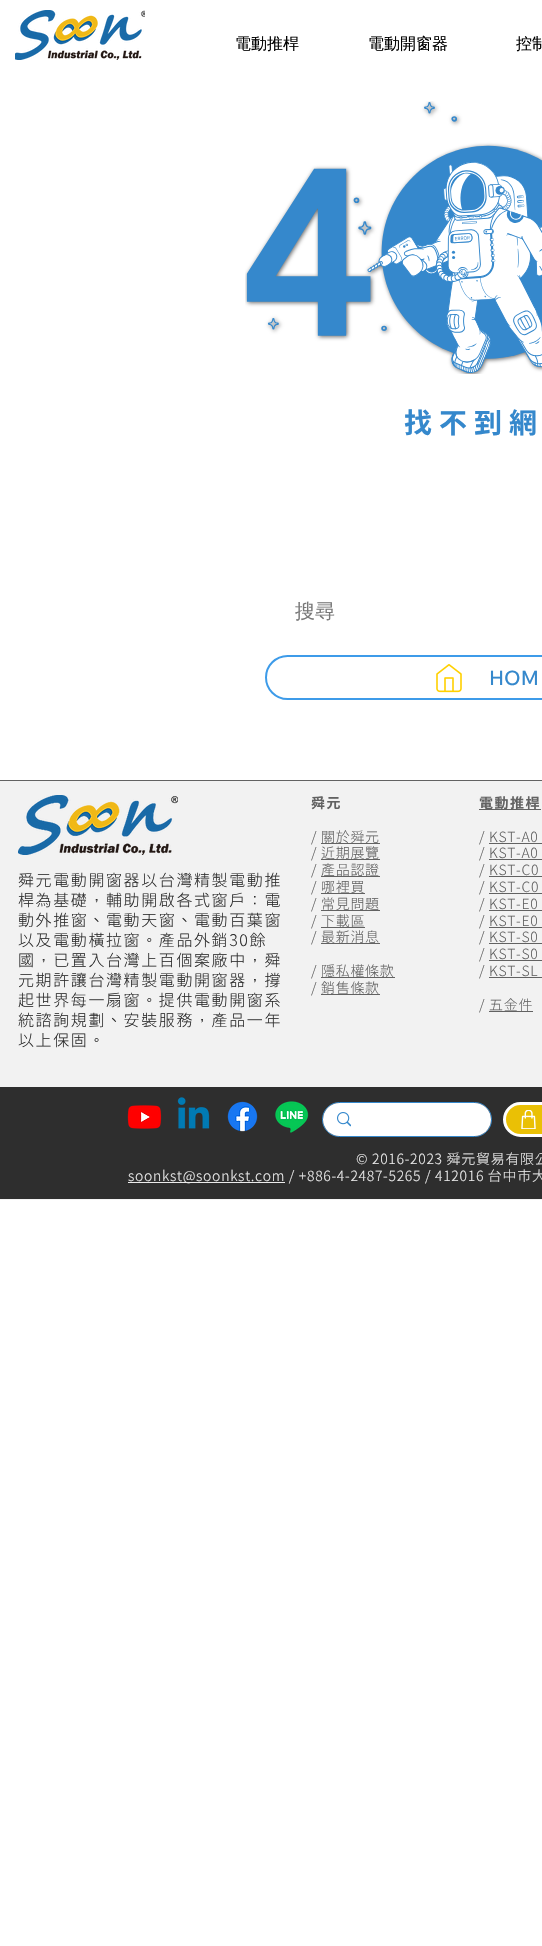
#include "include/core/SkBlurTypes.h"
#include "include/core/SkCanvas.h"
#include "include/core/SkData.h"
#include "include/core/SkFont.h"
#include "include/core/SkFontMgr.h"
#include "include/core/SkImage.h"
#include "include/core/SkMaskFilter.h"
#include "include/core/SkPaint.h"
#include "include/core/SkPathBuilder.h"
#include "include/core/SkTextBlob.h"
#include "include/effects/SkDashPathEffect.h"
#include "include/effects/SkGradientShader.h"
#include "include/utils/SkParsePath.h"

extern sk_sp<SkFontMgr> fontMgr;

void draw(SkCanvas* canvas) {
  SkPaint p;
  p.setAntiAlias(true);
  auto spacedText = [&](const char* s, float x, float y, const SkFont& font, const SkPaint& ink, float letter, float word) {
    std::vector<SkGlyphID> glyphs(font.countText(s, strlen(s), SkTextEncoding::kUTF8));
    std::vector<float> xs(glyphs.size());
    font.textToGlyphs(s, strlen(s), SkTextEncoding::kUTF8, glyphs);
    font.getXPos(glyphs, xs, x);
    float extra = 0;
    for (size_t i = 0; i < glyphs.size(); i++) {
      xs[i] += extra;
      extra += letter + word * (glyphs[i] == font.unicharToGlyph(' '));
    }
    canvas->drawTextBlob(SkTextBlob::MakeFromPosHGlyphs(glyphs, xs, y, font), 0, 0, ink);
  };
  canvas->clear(SK_ColorWHITE);
  canvas->drawImageRect(SkImages::DeferredFromEncodedData(SkData::MakeFromFileName("images/1.png")), SkRect::MakeLTRB(15, 10, 145, 60), SkSamplingOptions());
  canvas->drawImageRect(SkImages::DeferredFromEncodedData(SkData::MakeFromFileName("images/2.png")), SkRect::MakeLTRB(245, 101, 542, 374), SkSamplingOptions());
  p.setStyle(SkPaint::kStroke_Style);
  p.setStrokeWidth(2);
  p.setColor(SkColorSetRGB(61, 155, 233));
  canvas->drawRoundRect(SkRect::MakeLTRB(266, 656, 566, 699), 21.5f, 21.5f, p);
  canvas->drawImageRect(SkImages::DeferredFromEncodedData(SkData::MakeFromFileName("images/3.png")), SkRect::MakeLTRB(436, 664, 462, 693), SkSamplingOptions());
  p.setStyle(SkPaint::kFill_Style);
  p.setColor(SkColorSetRGB(242, 242, 242));
  canvas->drawRect(SkRect::MakeLTRB(0, 781, 542, 1200), p);
  p.setColor(SkColorSetRGB(98, 98, 98));
  canvas->drawRect(SkRect::MakeLTRB(0, 780, 542, 781), p);
  canvas->drawImageRect(SkImages::DeferredFromEncodedData(SkData::MakeFromFileName("images/4.png")), SkRect::MakeLTRB(18, 795, 178, 855), SkSamplingOptions());
  canvas->drawRect(SkRect::MakeLTRB(321, 843, 380, 844), p);
  canvas->drawRect(SkRect::MakeLTRB(321, 859, 380, 860), p);
  canvas->drawRect(SkRect::MakeLTRB(321, 876, 380, 877), p);
  canvas->drawRect(SkRect::MakeLTRB(321, 893, 365, 894), p);
  canvas->drawRect(SkRect::MakeLTRB(321, 910, 380, 911), p);
  canvas->drawRect(SkRect::MakeLTRB(321, 927, 365, 928), p);
  canvas->drawRect(SkRect::MakeLTRB(321, 943, 380, 944), p);
  canvas->drawRect(SkRect::MakeLTRB(321, 977, 395, 978), p);
  canvas->drawRect(SkRect::MakeLTRB(321, 994, 380, 995), p);
  canvas->drawRect(SkRect::MakeLTRB(479, 809, 541, 810), p);
  canvas->drawRect(SkRect::MakeLTRB(489, 843, 542, 844), p);
  canvas->drawRect(SkRect::MakeLTRB(489, 859, 542, 860), p);
  canvas->drawRect(SkRect::MakeLTRB(489, 876, 542, 877), p);
  canvas->drawRect(SkRect::MakeLTRB(489, 893, 542, 894), p);
  canvas->drawRect(SkRect::MakeLTRB(489, 910, 542, 911), p);
  canvas->drawRect(SkRect::MakeLTRB(489, 927, 542, 928), p);
  canvas->drawRect(SkRect::MakeLTRB(489, 943, 542, 944), p);
  canvas->drawRect(SkRect::MakeLTRB(489, 960, 542, 961), p);
  canvas->drawRect(SkRect::MakeLTRB(489, 977, 542, 978), p);
  canvas->drawRect(SkRect::MakeLTRB(489, 1011, 533, 1012), p);
  p.setColor(SkColorSetRGB(46, 46, 46));
  canvas->drawRect(SkRect::MakeLTRB(0, 1087, 542, 1199), p);
  canvas->drawImageRect(SkImages::DeferredFromEncodedData(SkData::MakeFromFileName("images/5.png")), SkRect::MakeLTRB(127, 1105, 162, 1129), SkSamplingOptions());
  canvas->drawImageRect(SkImages::DeferredFromEncodedData(SkData::MakeFromFileName("images/6.png")), SkRect::MakeLTRB(177, 1097, 210, 1129), SkSamplingOptions());
  canvas->drawImageRect(SkImages::DeferredFromEncodedData(SkData::MakeFromFileName("images/7.png")), SkRect::MakeLTRB(227, 1101, 258, 1132), SkSamplingOptions());
  canvas->drawImageRect(SkImages::DeferredFromEncodedData(SkData::MakeFromFileName("images/8.png")), SkRect::MakeLTRB(275, 1101, 309, 1133), SkSamplingOptions());
  p.setStyle(SkPaint::kStroke_Style);
  p.setStrokeWidth(1);
  p.setColor(SkColorSetRGB(53, 136, 204));
  canvas->drawRoundRect(SkRect::MakeLTRB(322.5f, 1102.5f, 491.5f, 1136.5f), 17, 17, p);
  p.setStyle(SkPaint::kFill_Style);
  p.setColor(SK_ColorWHITE);
  canvas->drawRoundRect(SkRect::MakeLTRB(323, 1103, 491, 1136), 16.5f, 16.5f, p);
  canvas->drawImageRect(SkImages::DeferredFromEncodedData(SkData::MakeFromFileName("images/9.png")), SkRect::MakeLTRB(337, 1112, 351, 1127), SkSamplingOptions());
  p.setColor(SkColorSetRGB(234, 192, 5));
  canvas->drawRoundRect(SkRect::MakeLTRB(504.5f, 1103.5f, 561.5f, 1135.5f), 16, 16, p);
  p.setStyle(SkPaint::kStroke_Style);
  p.setStrokeWidth(3);
  p.setColor(SK_ColorWHITE);
  canvas->drawRoundRect(SkRect::MakeLTRB(504.5f, 1103.5f, 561.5f, 1135.5f), 16, 16, p);
  canvas->drawImageRect(SkImages::DeferredFromEncodedData(SkData::MakeFromFileName("images/10.png")), SkRect::MakeLTRB(521, 1110, 536, 1129), SkSamplingOptions());
  p.setStyle(SkPaint::kFill_Style);
  p.setColor(SkColorSetRGB(235, 235, 235));
  canvas->drawRect(SkRect::MakeLTRB(128, 1182, 285, 1183), p);
  SkFont font1(fontMgr->matchFamilyStyle("WenQuanYi Zen Hei", SkFontStyle(500, SkFontStyle::kNormal_Width, SkFontStyle::kUpright_Slant)), 16);
  font1.setSubpixel(true);
  p.setColor(SK_ColorBLACK);
  canvas->drawString("電動推桿", 235, 49, font1, p);
  canvas->drawString("電動開窗器", 368, 49, font1, p);
  canvas->drawString("控制", 516, 49, font1, p);
  SkFont font2(fontMgr->matchFamilyStyle("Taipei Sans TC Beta", SkFontStyle::Bold()), 28);
  font2.setSubpixel(true);
  p.setColor(SkColorSetRGB(53, 136, 204));
  spacedText("找不到網", 404, 433, font2, p, 7, 0);
  SkFont font3(fontMgr->matchFamilyStyle("WenQuanYi Zen Hei", SkFontStyle(500, SkFontStyle::kNormal_Width, SkFontStyle::kUpright_Slant)), 20);
  font3.setSubpixel(true);
  p.setColor(SkColorSetRGB(120, 120, 120));
  canvas->drawString("搜尋", 295, 618, font3, p);
  SkFont font4(fontMgr->matchFamilyStyle("Wix Madefor Text", SkFontStyle(500, SkFontStyle::kNormal_Width, SkFontStyle::kUpright_Slant)), 20);
  font4.setSubpixel(true);
  p.setColor(SkColorSetRGB(53, 136, 204));
  canvas->drawString("HOM", 489, 685, font4, p);
  SkFont font5(fontMgr->matchFamilyStyle("Taipei Sans TC Beta", SkFontStyle::Bold()), 14);
  font5.setSubpixel(true);
  p.setColor(SkColorSetRGB(98, 98, 98));
  spacedText("舜元", 311, 808, font5, p, 1.5f, 0);
  SkFont font6(fontMgr->matchFamilyStyle("Taipei Sans TC Beta", SkFontStyle(300, SkFontStyle::kNormal_Width, SkFontStyle::kUpright_Slant)), 14);
  font6.setSubpixel(true);
  spacedText("/", 311, 842, font6, p, 0.7f, 0);
  spacedText("關於舜元", 321, 842, font6, p, 0.7f, 0);
  spacedText("/", 311, 858, font6, p, 0.7f, 0);
  spacedText("近期展覽", 321, 858, font6, p, 0.7f, 0);
  spacedText("/", 311, 875, font6, p, 0.7f, 0);
  spacedText("產品認證", 321, 875, font6, p, 0.7f, 0);
  spacedText("/", 311, 892, font6, p, 0.7f, 0);
  spacedText("哪裡買", 321, 892, font6, p, 0.7f, 0);
  spacedText("/", 311, 909, font6, p, 0.7f, 0);
  spacedText("常見問題", 321, 909, font6, p, 0.7f, 0);
  spacedText("/ 下載區", 311, 926, font6, p, 0.7f, 0);
  spacedText("/", 311, 942, font6, p, 0.7f, 0);
  spacedText("最新消息", 321, 942, font6, p, 0.7f, 0);
  spacedText("/", 311, 976, font6, p, 0.7f, 0);
  spacedText("隱私權條款", 321, 976, font6, p, 0.7f, 0);
  spacedText("/", 311, 993, font6, p, 0.7f, 0);
  spacedText("銷售條款", 321, 993, font6, p, 0.7f, 0);
  spacedText("電動推桿", 479, 808, font5, p, 1.5f, 0);
  spacedText("/ KST-A0", 479, 842, font6, p, 0.7f, 0);
  spacedText("/ KST-A0", 479, 858, font6, p, 0.7f, 0);
  spacedText("/ KST-C0", 479, 875, font6, p, 0.7f, 0);
  spacedText("/ KST-C0", 479, 892, font6, p, 0.7f, 0);
  spacedText("/ KST-E0", 479, 909, font6, p, 0.7f, 0);
  spacedText("/ KST-E0", 479, 926, font6, p, 0.7f, 0);
  spacedText("/ KST-S0", 479, 942, font6, p, 0.7f, 0);
  spacedText("/ KST-S0", 479, 959, font6, p, 0.7f, 0);
  spacedText("/ KST-SL", 479, 976, font6, p, 0.7f, 0);
  spacedText("/", 479, 1010, font6, p, 0.7f, 0);
  spacedText("五金件", 489, 1010, font6, p, 0.7f, 0);
  SkFont font7(fontMgr->matchFamilyStyle("Taipei Sans TC Beta", SkFontStyle(300, SkFontStyle::kNormal_Width, SkFontStyle::kUpright_Slant)), 16);
  font7.setSubpixel(true);
  p.setColor(SkColorSetRGB(46, 46, 46));
  spacedText("舜元電動開窗器以台灣精製電動推", 18, 886, font7, p, 1.6f, 0);
  spacedText("桿為基礎，輔助開啟各式窗戶：電", 18, 906, font7, p, 1.6f, 0);
  spacedText("動外推窗、電動天窗、電動百葉窗", 18, 926, font7, p, 1.6f, 0);
  spacedText("以及電動橫拉窗。產品外銷30餘", 18, 946, font7, p, 1.6f, 0);
  spacedText("國，已置入台灣上百個案廠中，舜", 18, 966, font7, p, 1.6f, 0);
  spacedText("元期許讓台灣精製電動開窗器，撐", 18, 986, font7, p, 1.6f, 0);
  spacedText("起世界每一扇窗。提供電動開窗系", 18, 1006, font7, p, 1.6f, 0);
  spacedText("統諮詢規劃、安裝服務，產品一年", 18, 1026, font7, p, 1.6f, 0);
  spacedText("以上保固。", 18, 1046, font7, p, 1.6f, 0);
  p.setColor(SkColorSetRGB(235, 235, 235));
  spacedText("© 2016-2023 舜元貿易有限公", 356, 1164, font6, p, 0.7f, 0);
  spacedText("soonkst@soonkst.com / +886-4-2487-5265 / 412016 台中市大", 128, 1181, font6, p, 0.7f, 0);
}
